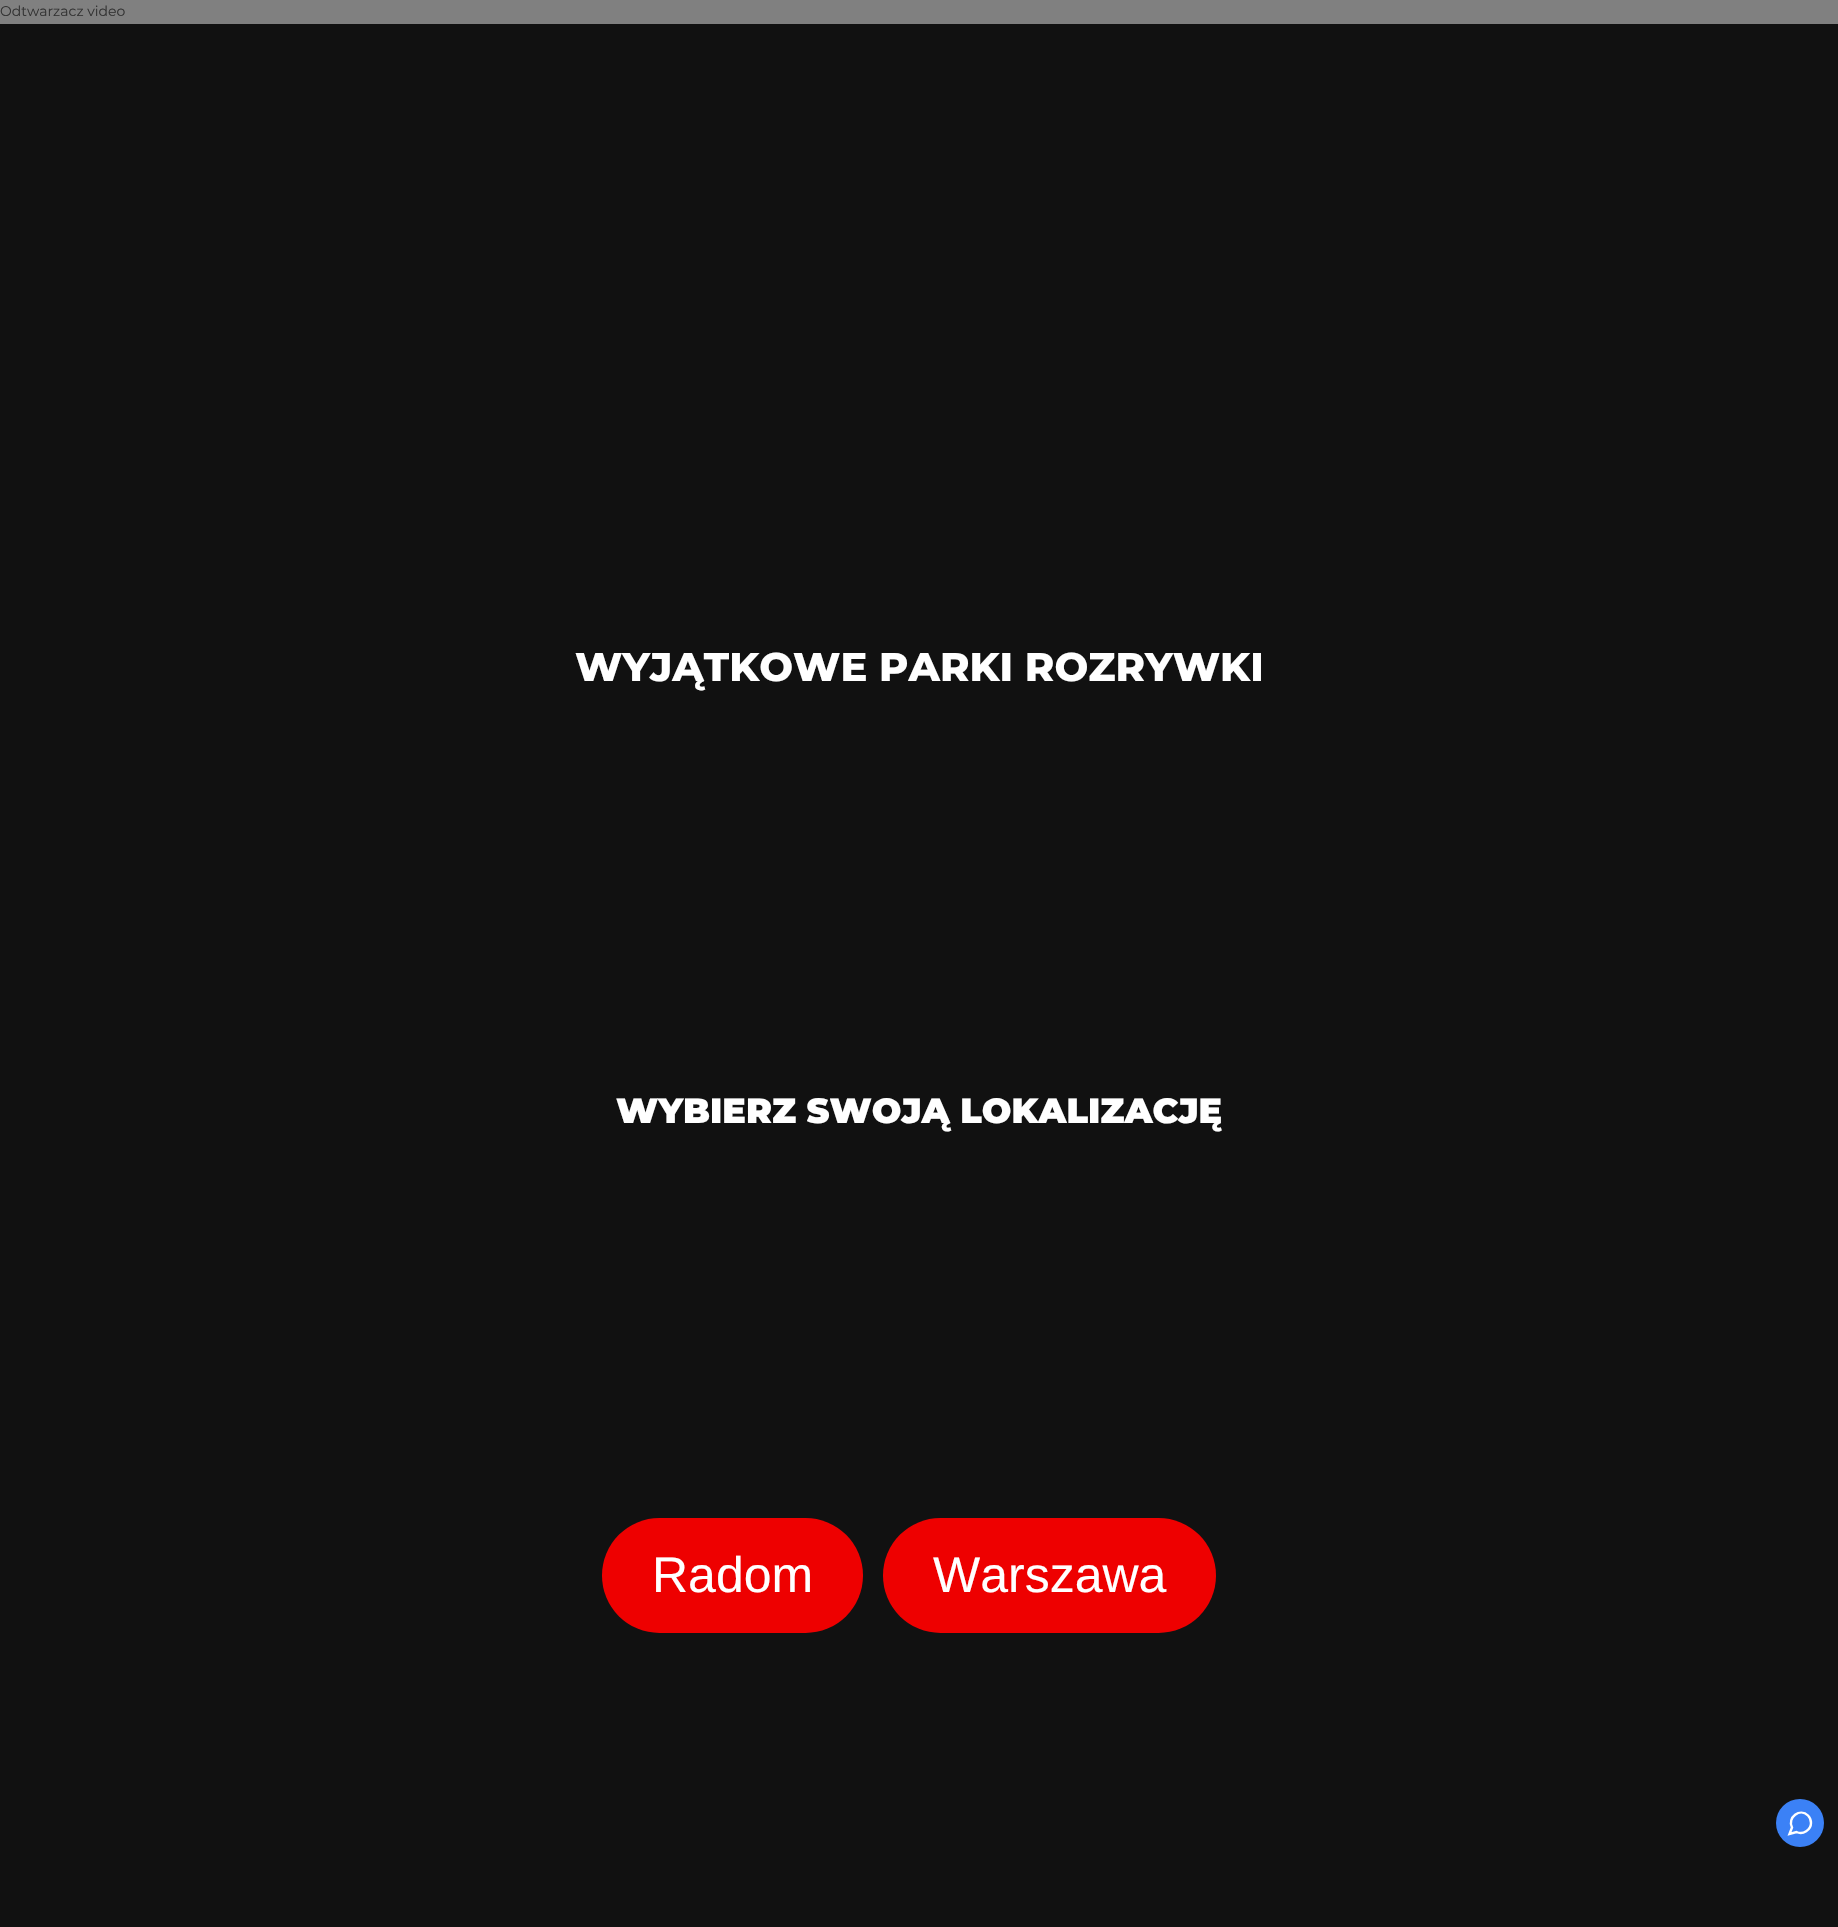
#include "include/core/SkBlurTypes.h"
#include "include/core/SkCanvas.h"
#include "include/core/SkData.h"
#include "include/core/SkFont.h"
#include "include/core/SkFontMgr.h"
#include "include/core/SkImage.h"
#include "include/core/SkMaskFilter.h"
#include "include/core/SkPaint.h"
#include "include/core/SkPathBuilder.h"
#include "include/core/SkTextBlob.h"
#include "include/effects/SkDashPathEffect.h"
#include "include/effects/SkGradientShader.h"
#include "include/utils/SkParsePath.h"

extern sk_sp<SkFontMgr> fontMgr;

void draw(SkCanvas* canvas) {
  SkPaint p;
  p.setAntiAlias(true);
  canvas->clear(SkColorSetRGB(128, 128, 128));
  p.setColor(SkColorSetRGB(17, 17, 17));
  canvas->drawRect(SkRect::MakeLTRB(0, 24, 1838, 1927), p);
  p.setColor(SkColorSetRGB(238, 0, 0));
  canvas->drawRoundRect(SkRect::MakeLTRB(602, 1518, 863, 1633), 57.5f, 57.5f, p);
  canvas->drawRoundRect(SkRect::MakeLTRB(883, 1518, 1216, 1633), 57.5f, 57.5f, p);
  p.setColor(SkColorSetRGB(59, 129, 246));
  canvas->drawCircle(1800, 1823, 24, p);
  p.setStyle(SkPaint::kStroke_Style);
  p.setStrokeWidth(2.4f);
  p.setColor(SK_ColorWHITE);
  canvas->drawPath(SkPathBuilder().moveTo(1811, 1823).cubicTo(1811, 1830, 1803, 1835, 1796.5f, 1832).lineTo(1789.5f, 1834).lineTo(1792, 1827.5f).cubicTo(1787, 1817.5f, 1800, 1807.5f, 1808, 1815.5f).cubicTo(1810, 1817.5f, 1811, 1820, 1811, 1823).close().detach(), p);
  SkFont font1(fontMgr->matchFamilyStyle("Montserrat", SkFontStyle(100, SkFontStyle::kNormal_Width, SkFontStyle::kUpright_Slant)), 14);
  font1.setSubpixel(true);
  p.setStyle(SkPaint::kFill_Style);
  p.setColor(SkColorSetRGB(51, 51, 51));
  canvas->drawString("Odtwarzacz video", 0, 16, font1, p);
  SkFont font2(fontMgr->matchFamilyStyle("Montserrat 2", SkFontStyle(100, SkFontStyle::kNormal_Width, SkFontStyle::kUpright_Slant)), 40);
  font2.setSubpixel(true);
  p.setColor(SK_ColorWHITE);
  canvas->drawString("WYJĄTKOWE PARKI ROZRYWKI", 575, 681, font2, p);
  SkFont font3(fontMgr->matchFamilyStyle("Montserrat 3", SkFontStyle(100, SkFontStyle::kNormal_Width, SkFontStyle::kUpright_Slant)), 35);
  font3.setSubpixel(true);
  canvas->drawString("WYBIERZ SWOJĄ LOKALIZACJĘ", 616, 1123, font3, p);
  SkFont font4(fontMgr->matchFamilyStyle("Liberation Sans", SkFontStyle::Normal()), 50);
  font4.setSubpixel(true);
  canvas->drawString("Radom", 652, 1592, font4, p);
  canvas->drawString("Warszawa", 933, 1592, font4, p);
}
